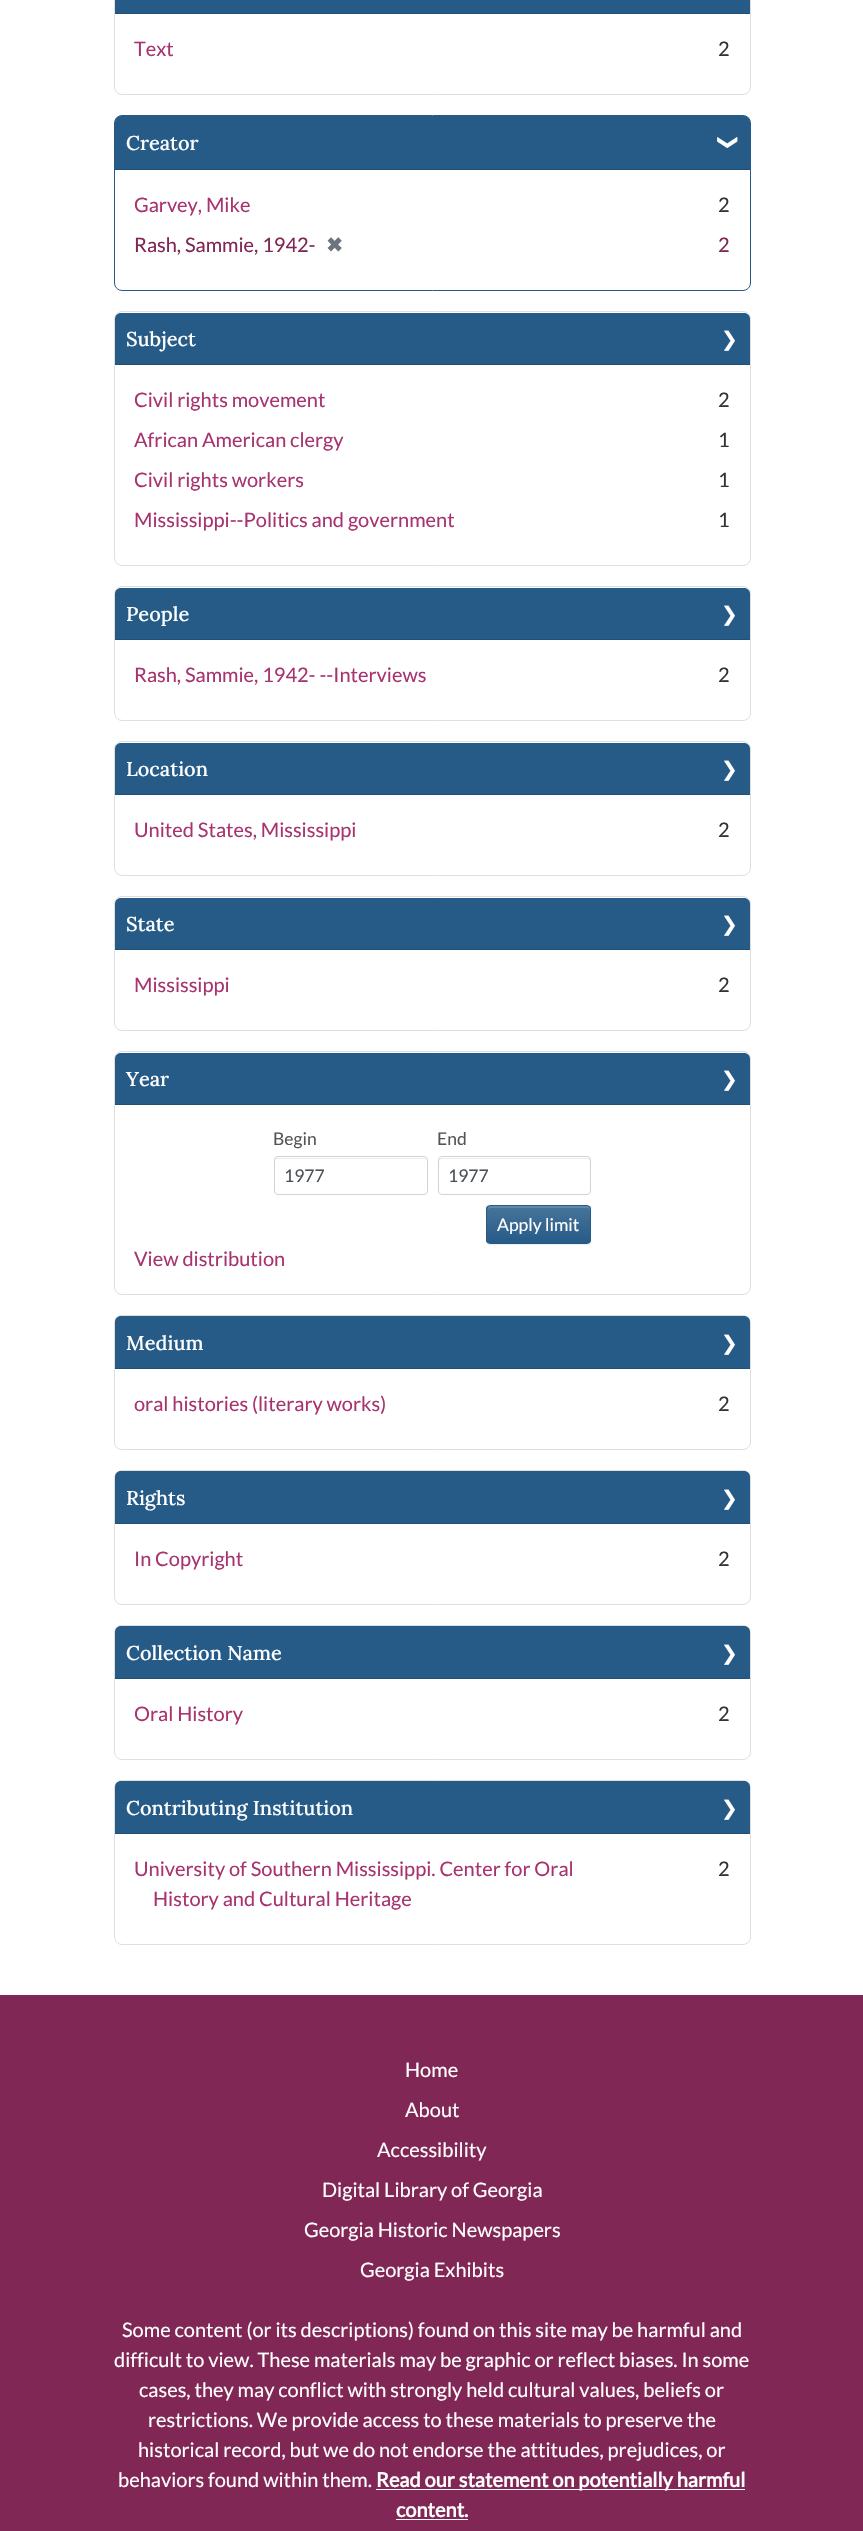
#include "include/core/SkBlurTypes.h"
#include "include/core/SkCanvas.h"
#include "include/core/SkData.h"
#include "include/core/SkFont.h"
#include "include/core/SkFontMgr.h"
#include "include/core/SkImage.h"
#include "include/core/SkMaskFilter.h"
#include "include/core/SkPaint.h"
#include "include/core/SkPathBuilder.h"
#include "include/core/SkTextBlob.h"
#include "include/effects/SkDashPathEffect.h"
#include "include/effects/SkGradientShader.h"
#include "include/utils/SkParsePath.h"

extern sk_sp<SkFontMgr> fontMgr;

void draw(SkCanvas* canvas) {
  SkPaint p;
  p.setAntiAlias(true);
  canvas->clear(SK_ColorWHITE);
  p.setStyle(SkPaint::kStroke_Style);
  p.setStrokeWidth(1);
  p.setColor(SkColorSetRGB(223, 223, 223));
  canvas->drawRoundRect(SkRect::MakeLTRB(114.5f, -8.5f, 750.5f, 94.5f), 7.5f, 7.5f, p);
  p.setStyle(SkPaint::kFill_Style);
  p.setColor(SkColorSetRGB(38, 91, 136));
  canvas->drawRect(SkRect::MakeLTRB(115, 0, 750, 13), p);
  p.setColor(SkColorSetRGB(33, 80, 119));
  canvas->drawRect(SkRect::MakeLTRB(115, 13, 750, 14), p);
  p.setStyle(SkPaint::kStroke_Style);
  p.setColor(SkColorSetRGB(38, 91, 136));
  canvas->drawRoundRect(SkRect::MakeLTRB(114.5f, 115.5f, 750.5f, 290.5f), 7.5f, 7.5f, p);
  p.setStyle(SkPaint::kFill_Style);
  canvas->drawPath(SkPathBuilder().moveTo(121, 116).lineTo(744, 116).cubicTo(747.5f, 116, 750, 118.5f, 750, 122).lineTo(750, 170).lineTo(115, 170).lineTo(115, 122).cubicTo(115, 118.5f, 117.5f, 116, 121, 116).close().detach(), p);
  p.setColor(SkColorSetRGB(33, 80, 119));
  canvas->drawRect(SkRect::MakeLTRB(115, 169, 750, 170), p);
  p.setStyle(SkPaint::kStroke_Style);
  p.setColor(SkColorSetRGB(223, 223, 223));
  canvas->drawRoundRect(SkRect::MakeLTRB(114.5f, 311.5f, 750.5f, 565.5f), 7.5f, 7.5f, p);
  p.setStyle(SkPaint::kFill_Style);
  p.setColor(SkColorSetRGB(38, 91, 136));
  canvas->drawPath(SkPathBuilder().moveTo(121, 313).lineTo(744, 313).cubicTo(747.5f, 313, 750, 315.5f, 750, 319).lineTo(750, 365).lineTo(115, 365).lineTo(115, 319).cubicTo(115, 315.5f, 117.5f, 313, 121, 313).close().detach(), p);
  p.setColor(SkColorSetRGB(33, 80, 119));
  canvas->drawRect(SkRect::MakeLTRB(115, 364, 750, 365), p);
  p.setStyle(SkPaint::kStroke_Style);
  p.setColor(SkColorSetRGB(223, 223, 223));
  canvas->drawRoundRect(SkRect::MakeLTRB(114.5f, 586.5f, 750.5f, 720.5f), 7.5f, 7.5f, p);
  p.setStyle(SkPaint::kFill_Style);
  p.setColor(SkColorSetRGB(38, 91, 136));
  canvas->drawPath(SkPathBuilder().moveTo(121, 588).lineTo(744, 588).cubicTo(747.5f, 588, 750, 590.5f, 750, 594).lineTo(750, 640).lineTo(115, 640).lineTo(115, 594).cubicTo(115, 590.5f, 117.5f, 588, 121, 588).close().detach(), p);
  p.setColor(SkColorSetRGB(33, 80, 119));
  canvas->drawRect(SkRect::MakeLTRB(115, 639, 750, 640), p);
  p.setStyle(SkPaint::kStroke_Style);
  p.setColor(SkColorSetRGB(223, 223, 223));
  canvas->drawRoundRect(SkRect::MakeLTRB(114.5f, 741.5f, 750.5f, 875.5f), 7.5f, 7.5f, p);
  p.setStyle(SkPaint::kFill_Style);
  p.setColor(SkColorSetRGB(38, 91, 136));
  canvas->drawPath(SkPathBuilder().moveTo(121, 743).lineTo(744, 743).cubicTo(747.5f, 743, 750, 745.5f, 750, 749).lineTo(750, 795).lineTo(115, 795).lineTo(115, 749).cubicTo(115, 745.5f, 117.5f, 743, 121, 743).close().detach(), p);
  p.setColor(SkColorSetRGB(33, 80, 119));
  canvas->drawRect(SkRect::MakeLTRB(115, 794, 750, 795), p);
  p.setStyle(SkPaint::kStroke_Style);
  p.setColor(SkColorSetRGB(223, 223, 223));
  canvas->drawRoundRect(SkRect::MakeLTRB(114.5f, 896.5f, 750.5f, 1030.5f), 7.5f, 7.5f, p);
  p.setStyle(SkPaint::kFill_Style);
  p.setColor(SkColorSetRGB(38, 91, 136));
  canvas->drawPath(SkPathBuilder().moveTo(121, 898).lineTo(744, 898).cubicTo(747.5f, 898, 750, 900.5f, 750, 904).lineTo(750, 950).lineTo(115, 950).lineTo(115, 904).cubicTo(115, 900.5f, 117.5f, 898, 121, 898).close().detach(), p);
  p.setColor(SkColorSetRGB(33, 80, 119));
  canvas->drawRect(SkRect::MakeLTRB(115, 949, 750, 950), p);
  p.setStyle(SkPaint::kStroke_Style);
  p.setColor(SkColorSetRGB(223, 223, 223));
  canvas->drawRoundRect(SkRect::MakeLTRB(114.5f, 1051.5f, 750.5f, 1294.5f), 7.5f, 7.5f, p);
  p.setStyle(SkPaint::kFill_Style);
  p.setColor(SkColorSetRGB(38, 91, 136));
  canvas->drawPath(SkPathBuilder().moveTo(121, 1053).lineTo(744, 1053).cubicTo(747.5f, 1053, 750, 1055.5f, 750, 1059).lineTo(750, 1105).lineTo(115, 1105).lineTo(115, 1059).cubicTo(115, 1055.5f, 117.5f, 1053, 121, 1053).close().detach(), p);
  p.setColor(SkColorSetRGB(33, 80, 119));
  canvas->drawRect(SkRect::MakeLTRB(115, 1104, 750, 1105), p);
  p.setColor(SkColorSetRGB(236, 236, 236));
  canvas->drawPath(SkPathBuilder().moveTo(278, 1159).lineTo(424, 1159).cubicTo(425, 1159, 426, 1160, 426, 1162).cubicTo(426, 1160, 426, 1158, 424, 1158).lineTo(277, 1158).cubicTo(275, 1158, 275, 1160, 275, 1162).cubicTo(275, 1160, 276, 1159, 278, 1159).close().detach(), p);
  p.setStyle(SkPaint::kStroke_Style);
  p.setColor(SkColorSetRGB(206, 212, 218));
  canvas->drawRoundRect(SkRect::MakeLTRB(274.5f, 1156.5f, 427.5f, 1194.5f), 3.5f, 3.5f, p);
  p.setStyle(SkPaint::kFill_Style);
  p.setColor(SkColorSetRGB(236, 236, 236));
  canvas->drawPath(SkPathBuilder().moveTo(442, 1159).lineTo(587, 1159).cubicTo(589, 1159, 590, 1160, 590, 1162).cubicTo(590, 1160, 590, 1158, 588, 1158).lineTo(441, 1158).cubicTo(439, 1158, 439, 1160, 439, 1162).cubicTo(439, 1160, 440, 1159, 442, 1159).close().detach(), p);
  p.setStyle(SkPaint::kStroke_Style);
  p.setColor(SkColorSetRGB(206, 212, 218));
  canvas->drawRoundRect(SkRect::MakeLTRB(438.5f, 1156.5f, 590.5f, 1194.5f), 3.5f, 3.5f, p);
  p.setStyle(SkPaint::kFill_Style);
  p.setColor(SkColorSetARGB(18, 0, 0, 0));
  p.setMaskFilter(SkMaskFilter::MakeBlur(kNormal_SkBlurStyle, 0.5f));
  canvas->drawRoundRect(SkRect::MakeLTRB(486, 1206, 591, 1245), 4, 4, p);
  p.setMaskFilter(nullptr);
  canvas->save();
  canvas->clipPath(SkPathBuilder().moveTo(490, 1205).lineTo(587, 1205).cubicTo(589, 1205, 591, 1207, 591, 1209).lineTo(591, 1240).cubicTo(591, 1242, 589, 1244, 587, 1244).lineTo(490, 1244).cubicTo(488, 1244, 486, 1242, 486, 1240).lineTo(486, 1209).cubicTo(486, 1207, 488, 1205, 490, 1205).close().detach(), true);
  {
    const SkColor colors[] = {SkColorSetRGB(71, 116, 154), SkColorSetRGB(38, 91, 136)};
    const float stops[] = {0, 1};
    const SkPoint ends[] = {{539, 1206}, {539, 1243}};
    p.setShader(SkGradientShader::MakeLinear(ends, colors, stops, 2, SkTileMode::kClamp));
    p.setAlpha(255);
  }
  canvas->drawRect(SkRect::MakeLTRB(486, 1206, 591, 1243), p);
  canvas->restore();
  p.setShader(nullptr);
  p.setColor(SkColorSetRGB(98, 136, 169));
  canvas->drawPath(SkPathBuilder().moveTo(490, 1208).lineTo(587, 1208).cubicTo(589, 1208, 590, 1209, 590, 1210).lineTo(590, 1208).cubicTo(590, 1207, 589, 1206, 588, 1206).lineTo(490, 1206).cubicTo(489, 1206, 488, 1207, 488, 1208).lineTo(488, 1210).cubicTo(488, 1209, 489, 1208, 490, 1208).close().detach(), p);
  p.setStyle(SkPaint::kStroke_Style);
  p.setColor(SkColorSetRGB(38, 91, 136));
  canvas->drawRoundRect(SkRect::MakeLTRB(486.5f, 1205.5f, 590.5f, 1243.5f), 3.5f, 3.5f, p);
  p.setColor(SkColorSetRGB(223, 223, 223));
  canvas->drawRoundRect(SkRect::MakeLTRB(114.5f, 1315.5f, 750.5f, 1449.5f), 7.5f, 7.5f, p);
  p.setStyle(SkPaint::kFill_Style);
  p.setColor(SkColorSetRGB(38, 91, 136));
  canvas->drawPath(SkPathBuilder().moveTo(121, 1316).lineTo(744, 1316).cubicTo(747.5f, 1316, 750, 1318.5f, 750, 1322).lineTo(750, 1369).lineTo(115, 1369).lineTo(115, 1322).cubicTo(115, 1318.5f, 117.5f, 1316, 121, 1316).close().detach(), p);
  p.setColor(SkColorSetRGB(33, 80, 119));
  canvas->drawRect(SkRect::MakeLTRB(115, 1368, 750, 1369), p);
  p.setStyle(SkPaint::kStroke_Style);
  p.setColor(SkColorSetRGB(223, 223, 223));
  canvas->drawRoundRect(SkRect::MakeLTRB(114.5f, 1470.5f, 750.5f, 1604.5f), 7.5f, 7.5f, p);
  p.setStyle(SkPaint::kFill_Style);
  p.setColor(SkColorSetRGB(38, 91, 136));
  canvas->drawPath(SkPathBuilder().moveTo(121, 1471).lineTo(744, 1471).cubicTo(747.5f, 1471, 750, 1473.5f, 750, 1477).lineTo(750, 1524).lineTo(115, 1524).lineTo(115, 1477).cubicTo(115, 1473.5f, 117.5f, 1471, 121, 1471).close().detach(), p);
  p.setColor(SkColorSetRGB(33, 80, 119));
  canvas->drawRect(SkRect::MakeLTRB(115, 1523, 750, 1524), p);
  p.setStyle(SkPaint::kStroke_Style);
  p.setColor(SkColorSetRGB(223, 223, 223));
  canvas->drawRoundRect(SkRect::MakeLTRB(114.5f, 1625.5f, 750.5f, 1759.5f), 7.5f, 7.5f, p);
  p.setStyle(SkPaint::kFill_Style);
  p.setColor(SkColorSetRGB(38, 91, 136));
  canvas->drawPath(SkPathBuilder().moveTo(121, 1626).lineTo(744, 1626).cubicTo(747.5f, 1626, 750, 1628.5f, 750, 1632).lineTo(750, 1679).lineTo(115, 1679).lineTo(115, 1632).cubicTo(115, 1628.5f, 117.5f, 1626, 121, 1626).close().detach(), p);
  p.setColor(SkColorSetRGB(33, 80, 119));
  canvas->drawRect(SkRect::MakeLTRB(115, 1678, 750, 1679), p);
  p.setStyle(SkPaint::kStroke_Style);
  p.setColor(SkColorSetRGB(223, 223, 223));
  canvas->drawRoundRect(SkRect::MakeLTRB(114.5f, 1780.5f, 750.5f, 1944.5f), 7.5f, 7.5f, p);
  p.setStyle(SkPaint::kFill_Style);
  p.setColor(SkColorSetRGB(38, 91, 136));
  canvas->drawPath(SkPathBuilder().moveTo(121, 1781).lineTo(744, 1781).cubicTo(747.5f, 1781, 750, 1783.5f, 750, 1787).lineTo(750, 1834).lineTo(115, 1834).lineTo(115, 1787).cubicTo(115, 1783.5f, 117.5f, 1781, 121, 1781).close().detach(), p);
  p.setColor(SkColorSetRGB(33, 80, 119));
  canvas->drawRect(SkRect::MakeLTRB(115, 1833, 750, 1834), p);
  p.setColor(SkColorSetRGB(128, 39, 85));
  canvas->drawRect(SkRect::MakeLTRB(0, 1995, 863, 2531), p);
  p.setColor(SK_ColorWHITE);
  canvas->drawRect(SkRect::MakeLTRB(376, 2489, 745, 2490), p);
  canvas->drawRect(SkRect::MakeLTRB(396, 2519, 468, 2520), p);
  SkFont font1(fontMgr->matchFamilyStyle("Lato", SkFontStyle::Normal()), 20);
  font1.setSubpixel(true);
  p.setColor(SkColorSetRGB(167, 51, 111));
  canvas->drawString("Text", 134, 56, font1, p);
  p.setColor(SkColorSetRGB(51, 51, 51));
  canvas->drawString("2", 718, 56, font1, p);
  SkFont font2(fontMgr->matchFamilyStyle("Lora", SkFontStyle(500, SkFontStyle::kNormal_Width, SkFontStyle::kUpright_Slant)), 20);
  font2.setSubpixel(true);
  p.setColor(SK_ColorWHITE);
  canvas->drawString("Creator", 126, 150, font2, p);
  SkFont font3(fontMgr->matchFamilyStyle("DejaVu Sans", SkFontStyle::Normal()), 20);
  font3.setSubpixel(true);
  canvas->save();
  canvas->rotate(90, 722, 134);
  canvas->drawString("❯", 722, 134, font3, p);
  canvas->restore();
  p.setColor(SkColorSetRGB(167, 51, 111));
  canvas->drawString("Garvey, Mike", 134, 212, font1, p);
  p.setColor(SkColorSetRGB(51, 51, 51));
  canvas->drawString("2", 718, 212, font1, p);
  p.setColor(SkColorSetRGB(128, 39, 85));
  canvas->drawString("Rash, Sammie, 1942-", 134, 252, font1, p);
  SkFont font4(fontMgr->matchFamilyStyle("DejaVu Sans", SkFontStyle::Bold()), 20);
  font4.setSubpixel(true);
  p.setColor(SkColorSetRGB(108, 117, 125));
  canvas->drawString("✖", 326, 252, font4, p);
  p.setColor(SkColorSetRGB(128, 39, 85));
  canvas->drawString("2", 718, 252, font1, p);
  p.setColor(SK_ColorWHITE);
  canvas->drawString("Subject", 126, 346, font2, p);
  canvas->drawString("❯", 721, 346, font3, p);
  p.setColor(SkColorSetRGB(167, 51, 111));
  canvas->drawString("Civil rights movement", 134, 407, font1, p);
  p.setColor(SkColorSetRGB(51, 51, 51));
  canvas->drawString("2", 718, 407, font1, p);
  p.setColor(SkColorSetRGB(167, 51, 111));
  canvas->drawString("African American clergy", 134, 447, font1, p);
  p.setColor(SkColorSetRGB(51, 51, 51));
  canvas->drawString("1", 718, 447, font1, p);
  p.setColor(SkColorSetRGB(167, 51, 111));
  canvas->drawString("Civil rights workers", 134, 487, font1, p);
  p.setColor(SkColorSetRGB(51, 51, 51));
  canvas->drawString("1", 718, 487, font1, p);
  p.setColor(SkColorSetRGB(167, 51, 111));
  canvas->drawString("Mississippi--Politics and government", 134, 527, font1, p);
  p.setColor(SkColorSetRGB(51, 51, 51));
  canvas->drawString("1", 718, 527, font1, p);
  p.setColor(SK_ColorWHITE);
  canvas->drawString("People", 126, 621, font2, p);
  canvas->drawString("❯", 721, 621, font3, p);
  p.setColor(SkColorSetRGB(167, 51, 111));
  canvas->drawString("Rash, Sammie, 1942- --Interviews", 134, 682, font1, p);
  p.setColor(SkColorSetRGB(51, 51, 51));
  canvas->drawString("2", 718, 682, font1, p);
  p.setColor(SK_ColorWHITE);
  canvas->drawString("Location", 126, 776, font2, p);
  canvas->drawString("❯", 721, 776, font3, p);
  p.setColor(SkColorSetRGB(167, 51, 111));
  canvas->drawString("United States, Mississippi", 134, 837, font1, p);
  p.setColor(SkColorSetRGB(51, 51, 51));
  canvas->drawString("2", 718, 837, font1, p);
  p.setColor(SK_ColorWHITE);
  canvas->drawString("State", 126, 931, font2, p);
  canvas->drawString("❯", 721, 931, font3, p);
  p.setColor(SkColorSetRGB(167, 51, 111));
  canvas->drawString("Mississippi", 134, 992, font1, p);
  p.setColor(SkColorSetRGB(51, 51, 51));
  canvas->drawString("2", 718, 992, font1, p);
  p.setColor(SK_ColorWHITE);
  canvas->drawString("Year", 126, 1086, font2, p);
  canvas->drawString("❯", 721, 1086, font3, p);
  SkFont font5(fontMgr->matchFamilyStyle("Lato", SkFontStyle::Normal()), 17.5f);
  font5.setSubpixel(true);
  p.setColor(SkColorSetRGB(85, 85, 85));
  canvas->drawString("Begin", 273, 1145, font5, p);
  p.setColor(SkColorSetRGB(73, 80, 87));
  canvas->drawString("1977", 284, 1182, font5, p);
  p.setColor(SkColorSetRGB(85, 85, 85));
  canvas->drawString("End", 437, 1145, font5, p);
  p.setColor(SkColorSetRGB(73, 80, 87));
  canvas->drawString("1977", 448, 1182, font5, p);
  p.setColor(SK_ColorWHITE);
  canvas->drawString("Apply limit", 497, 1231, font5, p);
  p.setColor(SkColorSetRGB(167, 51, 111));
  canvas->drawString("View distribution", 134, 1266, font1, p);
  p.setColor(SK_ColorWHITE);
  canvas->drawString("Medium", 126, 1350, font2, p);
  canvas->drawString("❯", 721, 1350, font3, p);
  p.setColor(SkColorSetRGB(167, 51, 111));
  canvas->drawString("oral histories (literary works)", 134, 1411, font1, p);
  p.setColor(SkColorSetRGB(51, 51, 51));
  canvas->drawString("2", 718, 1411, font1, p);
  p.setColor(SK_ColorWHITE);
  canvas->drawString("Rights", 126, 1505, font2, p);
  canvas->drawString("❯", 721, 1505, font3, p);
  p.setColor(SkColorSetRGB(167, 51, 111));
  canvas->drawString("In Copyright", 134, 1566, font1, p);
  p.setColor(SkColorSetRGB(51, 51, 51));
  canvas->drawString("2", 718, 1566, font1, p);
  p.setColor(SK_ColorWHITE);
  canvas->drawString("Collection Name", 126, 1660, font2, p);
  canvas->drawString("❯", 721, 1660, font3, p);
  p.setColor(SkColorSetRGB(167, 51, 111));
  canvas->drawString("Oral History", 134, 1721, font1, p);
  p.setColor(SkColorSetRGB(51, 51, 51));
  canvas->drawString("2", 718, 1721, font1, p);
  p.setColor(SK_ColorWHITE);
  canvas->drawString("Contributing Institution", 126, 1815, font2, p);
  canvas->drawString("❯", 721, 1815, font3, p);
  p.setColor(SkColorSetRGB(167, 51, 111));
  canvas->drawString("University of Southern Mississippi. Center for Oral", 134, 1876, font1, p);
  canvas->drawString("History and Cultural Heritage", 153, 1906, font1, p);
  p.setColor(SkColorSetRGB(51, 51, 51));
  canvas->drawString("2", 718, 1876, font1, p);
  p.setColor(SK_ColorWHITE);
  canvas->drawString("Home", 405, 2077, font1, p);
  canvas->drawString("About", 405, 2117, font1, p);
  canvas->drawString("Accessibility", 377, 2157, font1, p);
  canvas->drawString("Digital Library of Georgia", 322, 2197, font1, p);
  canvas->drawString("Georgia Historic Newspapers", 304, 2237, font1, p);
  canvas->drawString("Georgia Exhibits", 360, 2277, font1, p);
  canvas->drawString("Some content (or its descriptions) found on this site may be harmful and", 122, 2337, font1, p);
  canvas->drawString("difficult to view. These materials may be graphic or reflect biases. In some", 114, 2367, font1, p);
  canvas->drawString("cases, they may conflict with strongly held cultural values, beliefs or", 139, 2397, font1, p);
  canvas->drawString("restrictions. We provide access to these materials to preserve the", 148, 2427, font1, p);
  canvas->drawString("historical record, but we do not endorse the attitudes, prejudices, or", 138, 2457, font1, p);
  canvas->drawString("behaviors found within them.", 118, 2487, font1, p);
  SkFont font6(fontMgr->matchFamilyStyle("Lato", SkFontStyle::Bold()), 20);
  font6.setSubpixel(true);
  canvas->drawString("Read our statement on potentially harmful", 376, 2487, font6, p);
  canvas->drawString("content.", 396, 2517, font6, p);
}
